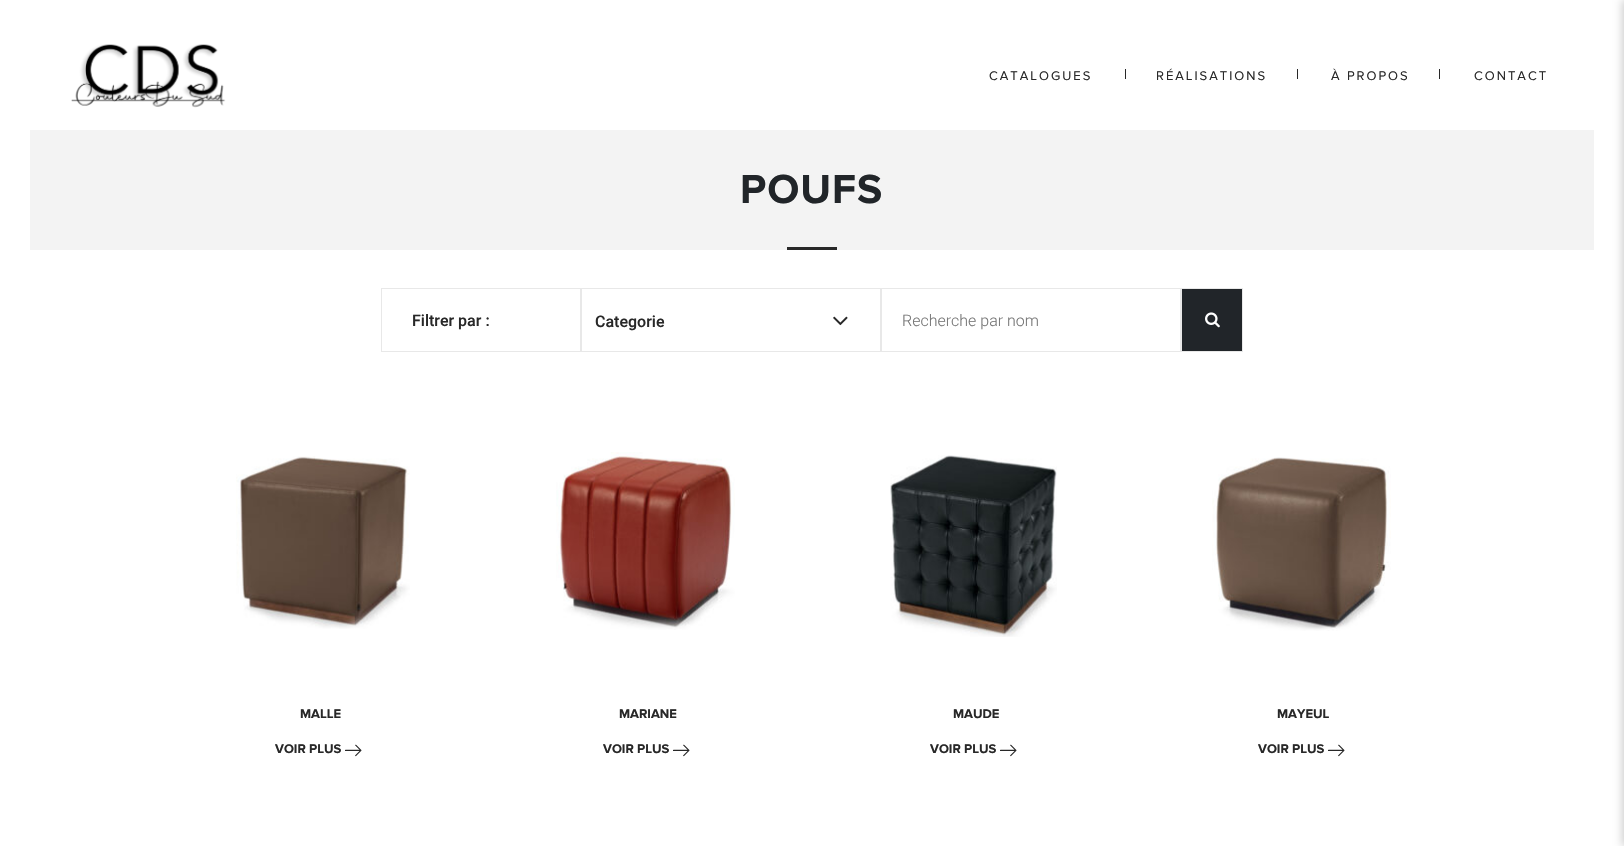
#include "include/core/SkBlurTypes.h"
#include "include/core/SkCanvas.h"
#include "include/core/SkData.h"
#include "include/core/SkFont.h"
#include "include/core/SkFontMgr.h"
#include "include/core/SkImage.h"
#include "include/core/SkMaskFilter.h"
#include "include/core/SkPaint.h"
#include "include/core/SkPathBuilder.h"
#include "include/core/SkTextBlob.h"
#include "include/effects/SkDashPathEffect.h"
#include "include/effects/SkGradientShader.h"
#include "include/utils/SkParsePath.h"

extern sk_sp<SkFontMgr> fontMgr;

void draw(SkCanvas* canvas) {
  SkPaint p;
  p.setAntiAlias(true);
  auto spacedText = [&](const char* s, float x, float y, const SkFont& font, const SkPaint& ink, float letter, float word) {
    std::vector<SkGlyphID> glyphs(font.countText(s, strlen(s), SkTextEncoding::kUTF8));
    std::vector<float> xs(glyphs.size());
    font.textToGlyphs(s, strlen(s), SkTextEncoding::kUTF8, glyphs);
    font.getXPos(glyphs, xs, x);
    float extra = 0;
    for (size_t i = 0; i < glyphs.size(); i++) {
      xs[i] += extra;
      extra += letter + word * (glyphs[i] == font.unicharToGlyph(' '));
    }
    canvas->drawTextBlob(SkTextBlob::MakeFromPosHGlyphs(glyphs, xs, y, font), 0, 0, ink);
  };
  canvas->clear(SK_ColorWHITE);
  canvas->drawImageRect(SkImages::DeferredFromEncodedData(SkData::MakeFromFileName("images/1.png")), SkRect::MakeLTRB(71, 44, 226, 108), SkSamplingOptions());
  p.setColor(SkColorSetRGB(40, 40, 40));
  canvas->drawRect(SkRect::MakeLTRB(1125, 69, 1126, 79), p);
  canvas->drawRect(SkRect::MakeLTRB(1297, 69, 1298, 79), p);
  canvas->drawRect(SkRect::MakeLTRB(1439, 69, 1440, 79), p);
  p.setColor(SkColorSetARGB(48, 0, 0, 0));
  p.setMaskFilter(SkMaskFilter::MakeBlur(kNormal_SkBlurStyle, 4));
  canvas->drawRect(SkRect::MakeLTRB(1622, 0, 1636, 846), p);
  p.setMaskFilter(nullptr);
  p.setColor(SkColorSetRGB(243, 243, 243));
  canvas->drawRect(SkRect::MakeLTRB(30, 130, 1594, 250), p);
  p.setColor(SkColorSetRGB(40, 40, 40));
  canvas->drawRect(SkRect::MakeLTRB(787, 247, 837, 250), p);
  p.setStyle(SkPaint::kStroke_Style);
  p.setStrokeWidth(1);
  p.setColor(SkColorSetRGB(232, 232, 232));
  canvas->drawRect(SkRect::MakeLTRB(381.5f, 288.5f, 580.5f, 351.5f), p);
  canvas->drawRect(SkRect::MakeLTRB(581.5f, 288.5f, 880.5f, 351.5f), p);
  canvas->drawImageRect(SkImages::DeferredFromEncodedData(SkData::MakeFromFileName("images/2.png")), SkRect::MakeLTRB(833, 316, 848, 326), SkSamplingOptions());
  canvas->drawRect(SkRect::MakeLTRB(881.5f, 288.5f, 1180.5f, 351.5f), p);
  canvas->drawRect(SkRect::MakeLTRB(1181.5f, 288.5f, 1242.5f, 351.5f), p);
  p.setStyle(SkPaint::kFill_Style);
  p.setColor(SkColorSetRGB(33, 37, 41));
  canvas->drawRect(SkRect::MakeLTRB(1182, 289, 1242, 351), p);
  canvas->drawImageRect(SkImages::DeferredFromEncodedData(SkData::MakeFromFileName("images/3.png")), SkRect::MakeLTRB(1205, 312, 1220, 328), SkSamplingOptions());
  canvas->drawImageRect(SkImages::DeferredFromEncodedData(SkData::MakeFromFileName("images/4.png")), SkRect::MakeLTRB(236, 456, 410, 629), SkSamplingOptions());
  canvas->drawImageRect(SkImages::DeferredFromEncodedData(SkData::MakeFromFileName("images/5.png")), SkRect::MakeLTRB(345, 744, 362, 757), SkSamplingOptions());
  canvas->drawImageRect(SkImages::DeferredFromEncodedData(SkData::MakeFromFileName("images/6.png")), SkRect::MakeLTRB(556, 452, 735, 630), SkSamplingOptions());
  canvas->drawImageRect(SkImages::DeferredFromEncodedData(SkData::MakeFromFileName("images/5.png")), SkRect::MakeLTRB(673, 744, 690, 757), SkSamplingOptions());
  canvas->drawImageRect(SkImages::DeferredFromEncodedData(SkData::MakeFromFileName("images/7.png")), SkRect::MakeLTRB(890, 455, 1057, 637), SkSamplingOptions());
  canvas->drawImageRect(SkImages::DeferredFromEncodedData(SkData::MakeFromFileName("images/5.png")), SkRect::MakeLTRB(1000, 744, 1017, 757), SkSamplingOptions());
  canvas->drawImageRect(SkImages::DeferredFromEncodedData(SkData::MakeFromFileName("images/8.png")), SkRect::MakeLTRB(1212, 457, 1391, 631), SkSamplingOptions());
  canvas->drawImageRect(SkImages::DeferredFromEncodedData(SkData::MakeFromFileName("images/5.png")), SkRect::MakeLTRB(1328, 744, 1345, 757), SkSamplingOptions());
  SkFont font1(fontMgr->matchFamilyStyle("Proxima Nova", SkFontStyle::Normal()), 13);
  font1.setSubpixel(true);
  p.setColor(SkColorSetRGB(40, 40, 40));
  spacedText("CATALOGUES", 989, 80, font1, p, 2, 0);
  spacedText("RÉALISATIONS", 1156, 80, font1, p, 2, 0);
  spacedText("À PROPOS", 1331, 80, font1, p, 2, 0);
  spacedText("CONTACT", 1474, 80, font1, p, 2, 0);
  SkFont font2(fontMgr->matchFamilyStyle("Proxima Nova", SkFontStyle::Bold()), 42);
  font2.setSubpixel(true);
  p.setColor(SkColorSetRGB(33, 37, 41));
  spacedText("POUFS", 740, 203, font2, p, 1, 0);
  SkFont font3(fontMgr->matchFamilyStyle("Roboto", SkFontStyle(500, SkFontStyle::kNormal_Width, SkFontStyle::kUpright_Slant)), 16);
  font3.setSubpixel(true);
  p.setColor(SkColorSetRGB(40, 40, 40));
  canvas->drawString("Filtrer par :", 412, 326, font3, p);
  canvas->drawString("Categorie", 595, 327, font3, p);
  SkFont font4(fontMgr->matchFamilyStyle("Roboto", SkFontStyle(300, SkFontStyle::kNormal_Width, SkFontStyle::kUpright_Slant)), 16);
  font4.setSubpixel(true);
  p.setColor(SkColorSetRGB(117, 117, 117));
  canvas->drawString("Recherche par nom", 902, 326, font4, p);
  SkFont font5(fontMgr->matchFamilyStyle("Proxima Nova", SkFontStyle::Bold()), 13);
  font5.setSubpixel(true);
  p.setColor(SkColorSetRGB(40, 40, 40));
  canvas->drawString("MALLE", 300, 718, font5, p);
  canvas->drawString("VOIR PLUS", 275, 753, font5, p);
  canvas->drawString("MARIANE", 619, 718, font5, p);
  canvas->drawString("VOIR PLUS", 603, 753, font5, p);
  canvas->drawString("MAUDE", 953, 718, font5, p);
  canvas->drawString("VOIR PLUS", 930, 753, font5, p);
  canvas->drawString("MAYEUL", 1277, 718, font5, p);
  canvas->drawString("VOIR PLUS", 1258, 753, font5, p);
}
